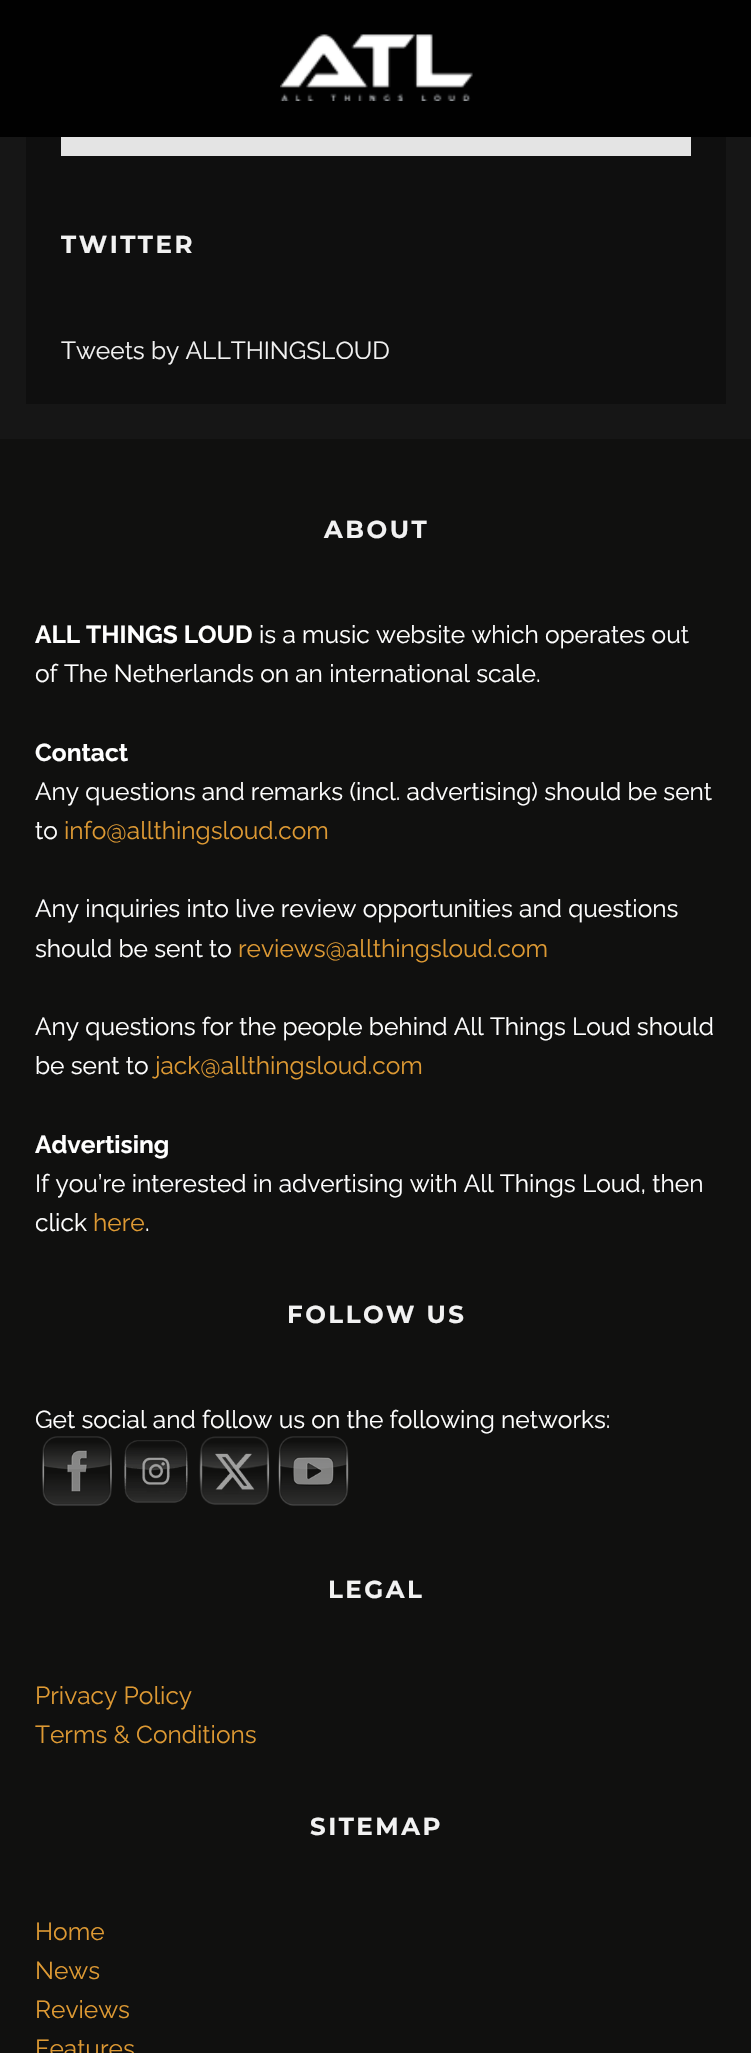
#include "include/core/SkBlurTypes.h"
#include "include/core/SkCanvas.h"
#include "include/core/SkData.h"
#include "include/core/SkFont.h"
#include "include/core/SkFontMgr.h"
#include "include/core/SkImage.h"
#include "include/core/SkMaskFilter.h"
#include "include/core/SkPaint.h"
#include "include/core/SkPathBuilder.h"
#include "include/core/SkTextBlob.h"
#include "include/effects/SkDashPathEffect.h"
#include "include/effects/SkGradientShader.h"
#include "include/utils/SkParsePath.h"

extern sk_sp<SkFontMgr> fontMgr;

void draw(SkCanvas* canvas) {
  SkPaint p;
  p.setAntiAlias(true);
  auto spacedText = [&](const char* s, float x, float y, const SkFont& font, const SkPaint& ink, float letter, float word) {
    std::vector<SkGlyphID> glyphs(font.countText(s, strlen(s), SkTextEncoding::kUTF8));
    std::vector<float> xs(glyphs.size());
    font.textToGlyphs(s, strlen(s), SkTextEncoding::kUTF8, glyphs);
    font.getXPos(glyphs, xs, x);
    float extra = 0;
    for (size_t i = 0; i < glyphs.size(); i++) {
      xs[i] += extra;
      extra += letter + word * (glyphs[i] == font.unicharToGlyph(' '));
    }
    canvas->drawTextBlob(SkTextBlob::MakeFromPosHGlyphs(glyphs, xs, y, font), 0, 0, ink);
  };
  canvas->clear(SkColorSetRGB(22, 22, 22));
  p.setColor(SkColorSetRGB(1, 1, 1));
  canvas->drawRect(SkRect::MakeLTRB(0, 0, 751, 137), p);
  canvas->drawImageRect(SkImages::DeferredFromEncodedData(SkData::MakeFromFileName("images/1.png")), SkRect::MakeLTRB(280, 34, 473, 101), SkSamplingOptions());
  p.setColor(SkColorSetRGB(15, 15, 15));
  canvas->drawRect(SkRect::MakeLTRB(26, 137, 726, 404), p);
  p.setColor(SkColorSetRGB(228, 228, 228));
  canvas->drawRect(SkRect::MakeLTRB(61, 137, 691, 156), p);
  p.setColor(SkColorSetRGB(16, 16, 15));
  canvas->drawRect(SkRect::MakeLTRB(0, 439, 751, 2053), p);
  canvas->drawImageRect(SkImages::DeferredFromEncodedData(SkData::MakeFromFileName("images/2.png")), SkRect::MakeLTRB(42, 1436, 112, 1506), SkSamplingOptions());
  canvas->drawImageRect(SkImages::DeferredFromEncodedData(SkData::MakeFromFileName("images/3.png")), SkRect::MakeLTRB(124, 1440, 188, 1503), SkSamplingOptions());
  canvas->drawImageRect(SkImages::DeferredFromEncodedData(SkData::MakeFromFileName("images/4.png")), SkRect::MakeLTRB(199, 1436, 270, 1505), SkSamplingOptions());
  canvas->drawImageRect(SkImages::DeferredFromEncodedData(SkData::MakeFromFileName("images/5.png")), SkRect::MakeLTRB(278, 1436, 349, 1506), SkSamplingOptions());
  SkFont font1(fontMgr->matchFamilyStyle("Montserrat", SkFontStyle::Bold()), 24.5f);
  font1.setSubpixel(true);
  p.setColor(SkColorSetRGB(242, 242, 242));
  spacedText("TWITTER", 61, 253, font1, p, 2.5f, 0);
  SkFont font2(fontMgr->matchFamilyStyle("Raleway", SkFontStyle::Normal()), 24.5f);
  font2.setSubpixel(true);
  canvas->drawString("Tweets by ALLTHINGSLOUD", 61, 359, font2, p);
  spacedText("ABOUT", 324, 538, font1, p, 2.5f, 0);
  SkFont font3(fontMgr->matchFamilyStyle("Raleway", SkFontStyle::Bold()), 24.5f);
  font3.setSubpixel(true);
  p.setColor(SK_ColorWHITE);
  canvas->drawString("ALL THINGS LOUD", 35, 643, font3, p);
  canvas->drawString("is a music website which operates out", 259, 643, font2, p);
  canvas->drawString("of The Netherlands on an international scale.", 35, 682, font2, p);
  canvas->drawString("Contact", 35, 761, font3, p);
  canvas->drawString("Any questions and remarks (incl. advertising) should be sent", 35, 800, font2, p);
  canvas->drawString("to", 35, 839, font2, p);
  p.setColor(SkColorSetRGB(221, 153, 51));
  canvas->drawString("info@allthingsloud.com", 64, 839, font2, p);
  p.setColor(SK_ColorWHITE);
  canvas->drawString("Any inquiries into live review opportunities and questions", 35, 917, font2, p);
  canvas->drawString("should be sent to", 35, 957, font2, p);
  p.setColor(SkColorSetRGB(221, 153, 51));
  canvas->drawString("reviews@allthingsloud.com", 238, 957, font2, p);
  p.setColor(SK_ColorWHITE);
  canvas->drawString("Any questions for the people behind All Things Loud should", 35, 1035, font2, p);
  canvas->drawString("be sent to", 35, 1074, font2, p);
  p.setColor(SkColorSetRGB(221, 153, 51));
  canvas->drawString("jack@allthingsloud.com", 155, 1074, font2, p);
  p.setColor(SK_ColorWHITE);
  canvas->drawString("Advertising", 35, 1153, font3, p);
  canvas->drawString("If you’re interested in advertising with All Things Loud, then", 35, 1192, font2, p);
  canvas->drawString("click", 35, 1231, font2, p);
  p.setColor(SkColorSetRGB(221, 153, 51));
  canvas->drawString("here", 93, 1231, font2, p);
  p.setColor(SK_ColorWHITE);
  canvas->drawString(".", 145, 1231, font2, p);
  p.setColor(SkColorSetRGB(242, 242, 242));
  spacedText("FOLLOW US", 287, 1323, font1, p, 2.5f, 0);
  p.setColor(SK_ColorWHITE);
  canvas->drawString("Get social and follow us on the following networks:", 35, 1428, font2, p);
  p.setColor(SkColorSetRGB(242, 242, 242));
  spacedText("LEGAL", 328, 1598, font1, p, 2.5f, 0);
  p.setColor(SkColorSetRGB(221, 153, 51));
  canvas->drawString("Privacy Policy", 35, 1704, font2, p);
  canvas->drawString("Terms & Conditions", 35, 1743, font2, p);
  p.setColor(SkColorSetRGB(242, 242, 242));
  spacedText("SITEMAP", 310, 1835, font1, p, 2.5f, 0);
  p.setColor(SkColorSetRGB(221, 153, 51));
  canvas->drawString("Home", 35, 1940, font2, p);
  canvas->drawString("News", 35, 1979, font2, p);
  canvas->drawString("Reviews", 35, 2018, font2, p);
  canvas->drawString("Features", 35, 2057, font2, p);
}
